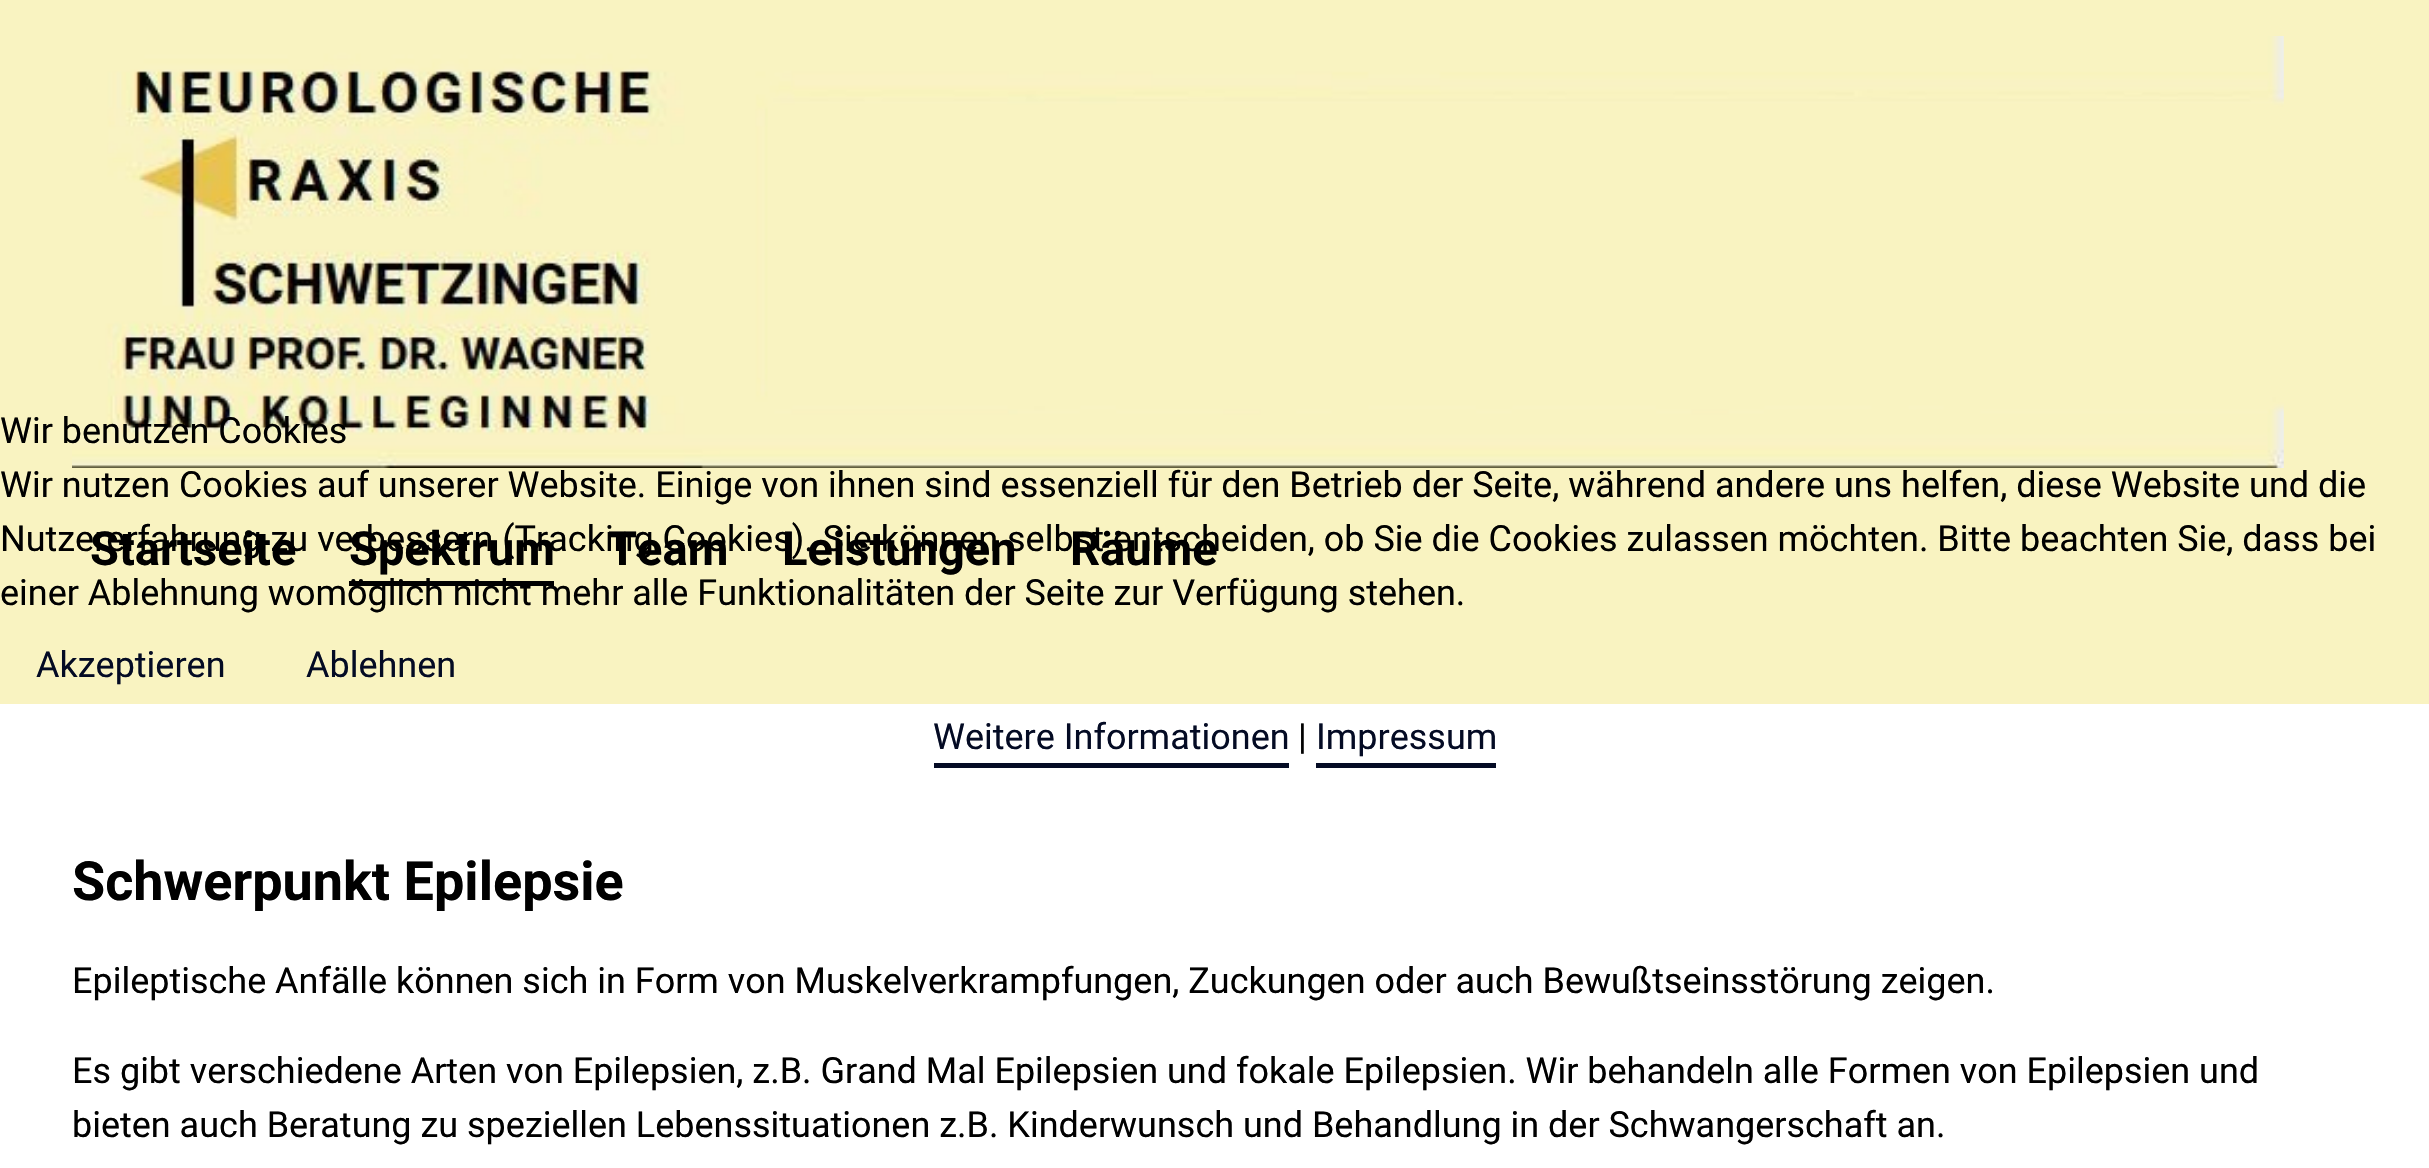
#include "include/core/SkBlurTypes.h"
#include "include/core/SkCanvas.h"
#include "include/core/SkData.h"
#include "include/core/SkFont.h"
#include "include/core/SkFontMgr.h"
#include "include/core/SkImage.h"
#include "include/core/SkMaskFilter.h"
#include "include/core/SkPaint.h"
#include "include/core/SkPathBuilder.h"
#include "include/core/SkTextBlob.h"
#include "include/effects/SkDashPathEffect.h"
#include "include/effects/SkGradientShader.h"
#include "include/utils/SkParsePath.h"

extern sk_sp<SkFontMgr> fontMgr;

void draw(SkCanvas* canvas) {
  SkPaint p;
  p.setAntiAlias(true);
  canvas->clear(SK_ColorWHITE);
  p.setColor(SkColorSetRGB(4, 11, 36));
  canvas->drawRect(SkRect::MakeLTRB(934, 763, 1289, 768), p);
  canvas->drawRect(SkRect::MakeLTRB(1316, 763, 1496, 768), p);
  p.setColor(SkColorSetRGB(249, 243, 193));
  canvas->drawRect(SkRect::MakeLTRB(0, 0, 2429, 704), p);
  canvas->drawImageRect(SkImages::DeferredFromEncodedData(SkData::MakeFromFileName("images/1.png")), SkRect::MakeLTRB(72, 36, 2284, 468), SkSamplingOptions());
  p.setColor(SK_ColorBLACK);
  canvas->drawRect(SkRect::MakeLTRB(349, 581, 554, 586), p);
  SkFont font1(fontMgr->matchFamilyStyle("Roboto", SkFontStyle::Normal()), 36);
  font1.setSubpixel(true);
  canvas->drawString("Wir benutzen Cookies", 0, 443, font1, p);
  canvas->drawString("Wir nutzen Cookies auf unserer Website. Einige von ihnen sind essenziell für den Betrieb der Seite, während andere uns helfen, diese Website und die", 0, 497, font1, p);
  canvas->drawString("einer Ablehnung womöglich nicht mehr alle Funktionalitäten der Seite zur Verfügung stehen.", 0, 605, font1, p);
  p.setColor(SkColorSetRGB(4, 11, 36));
  canvas->drawString("Akzeptieren", 36, 677, font1, p);
  canvas->drawString("Ablehnen", 306, 677, font1, p);
  canvas->drawString("Weitere Informationen", 933, 749, font1, p);
  p.setColor(SK_ColorBLACK);
  canvas->drawString("|", 1298, 749, font1, p);
  p.setColor(SkColorSetRGB(4, 11, 36));
  canvas->drawString("Impressum", 1316, 749, font1, p);
  SkFont font2(fontMgr->matchFamilyStyle("Roboto", SkFontStyle::Bold()), 47);
  font2.setSubpixel(true);
  p.setColor(SK_ColorBLACK);
  canvas->drawString("Startseite", 90, 565, font2, p);
  canvas->drawString("Spektrum", 349, 565, font2, p);
  canvas->drawString("Team", 608, 565, font2, p);
  canvas->drawString("Leistungen", 782, 565, font2, p);
  canvas->drawString("Räume", 1070, 565, font2, p);
  canvas->drawString("Nutzererfahrung zu verbessern (Tracking Cookies). Sie können selbst entscheiden, ob Sie die Cookies zulassen möchten. Bitte beachten Sie, dass bei", 0, 551, font1, p);
  SkFont font3(fontMgr->matchFamilyStyle("Roboto", SkFontStyle::Bold()), 54);
  font3.setSubpixel(true);
  canvas->drawString("Schwerpunkt Epilepsie", 72, 900, font3, p);
  canvas->drawString("Epileptische Anfälle können sich in Form von Muskelverkrampfungen, Zuckungen oder auch Bewußtseinsstörung zeigen.", 72, 993, font1, p);
  canvas->drawString("Es gibt verschiedene Arten von Epilepsien, z.B. Grand Mal Epilepsien und fokale Epilepsien. Wir behandeln alle Formen von Epilepsien und", 72, 1083, font1, p);
  canvas->drawString("bieten auch Beratung zu speziellen Lebenssituationen z.B. Kinderwunsch und Behandlung in der Schwangerschaft an.", 72, 1137, font1, p);
}
